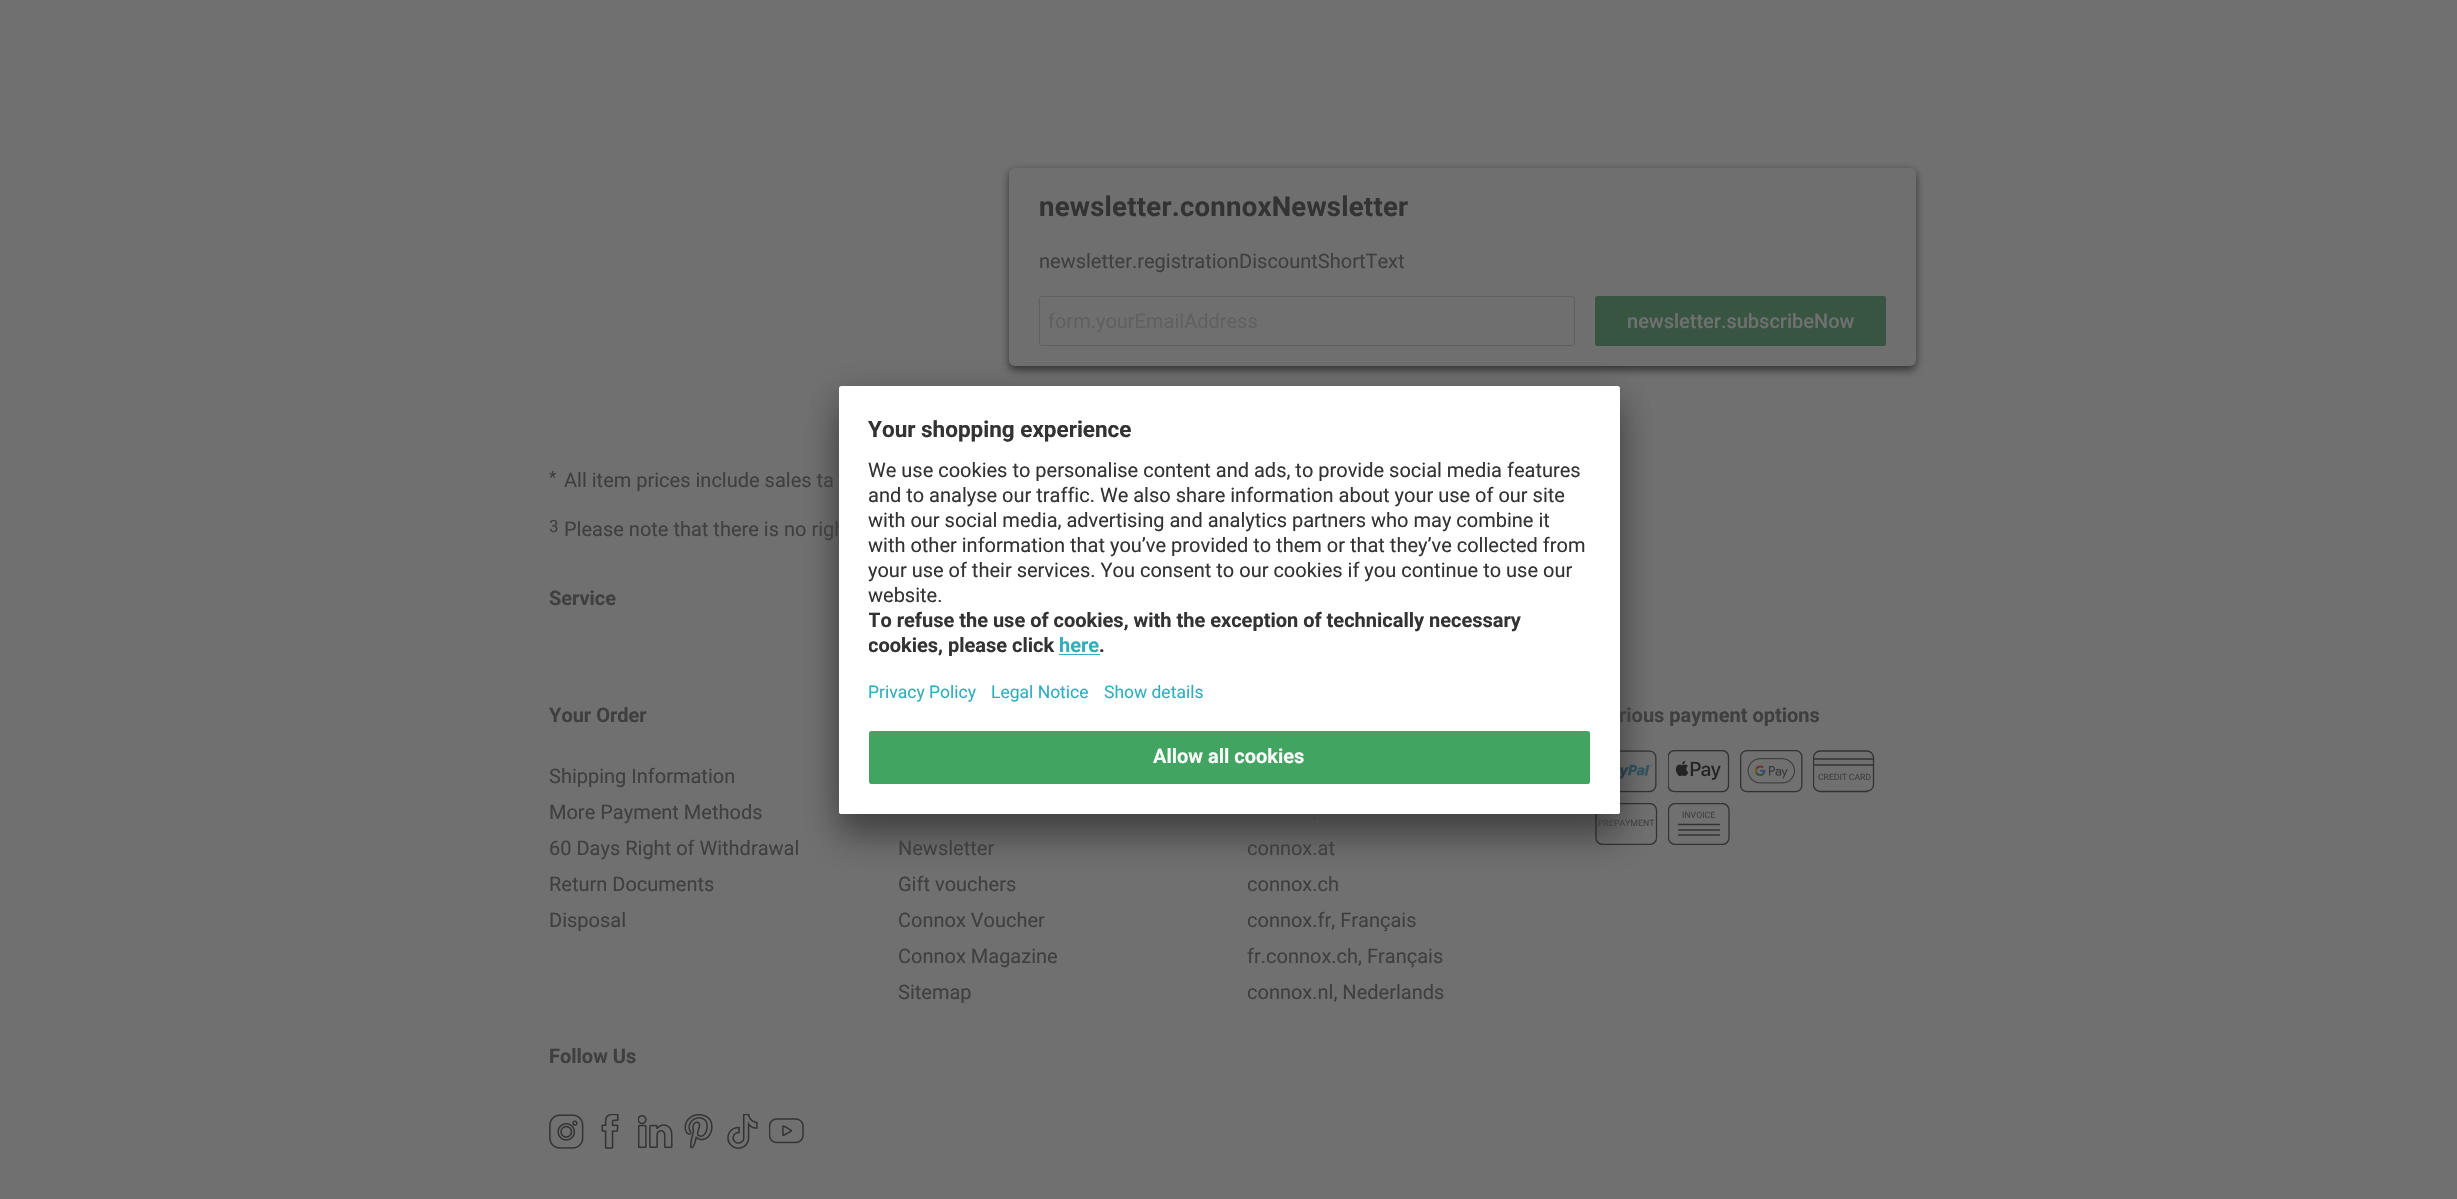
#include "include/core/SkBlurTypes.h"
#include "include/core/SkCanvas.h"
#include "include/core/SkData.h"
#include "include/core/SkFont.h"
#include "include/core/SkFontMgr.h"
#include "include/core/SkImage.h"
#include "include/core/SkMaskFilter.h"
#include "include/core/SkPaint.h"
#include "include/core/SkPathBuilder.h"
#include "include/core/SkTextBlob.h"
#include "include/effects/SkDashPathEffect.h"
#include "include/effects/SkGradientShader.h"
#include "include/utils/SkParsePath.h"

extern sk_sp<SkFontMgr> fontMgr;

void draw(SkCanvas* canvas) {
  SkPaint p;
  p.setAntiAlias(true);
  auto spacedText = [&](const char* s, float x, float y, const SkFont& font, const SkPaint& ink, float letter, float word) {
    std::vector<SkGlyphID> glyphs(font.countText(s, strlen(s), SkTextEncoding::kUTF8));
    std::vector<float> xs(glyphs.size());
    font.textToGlyphs(s, strlen(s), SkTextEncoding::kUTF8, glyphs);
    font.getXPos(glyphs, xs, x);
    float extra = 0;
    for (size_t i = 0; i < glyphs.size(); i++) {
      xs[i] += extra;
      extra += letter + word * (glyphs[i] == font.unicharToGlyph(' '));
    }
    canvas->drawTextBlob(SkTextBlob::MakeFromPosHGlyphs(glyphs, xs, y, font), 0, 0, ink);
  };
  canvas->clear(SkColorSetRGB(112, 112, 112));
  p.setColor(SkColorSetRGB(51, 51, 51));
  p.setMaskFilter(SkMaskFilter::MakeBlur(kNormal_SkBlurStyle, 4));
  canvas->drawRoundRect(SkRect::MakeLTRB(1009, 171, 1916, 370), 6, 6, p);
  p.setMaskFilter(nullptr);
  p.setColor(SkColorSetRGB(111, 111, 111));
  canvas->drawRoundRect(SkRect::MakeLTRB(1009, 168, 1916, 366), 6, 6, p);
  p.setStyle(SkPaint::kStroke_Style);
  p.setStrokeWidth(1);
  p.setColor(SkColorSetRGB(96, 96, 95));
  canvas->drawRoundRect(SkRect::MakeLTRB(1039.5f, 296.5f, 1574.5f, 345.5f), 2, 2, p);
  p.setStyle(SkPaint::kFill_Style);
  p.setColor(SkColorSetRGB(55, 85, 65));
  canvas->drawRoundRect(SkRect::MakeLTRB(1595, 296, 1886, 346), 2.5f, 2.5f, p);
  canvas->drawImageRect(SkImages::DeferredFromEncodedData(SkData::MakeFromFileName("images/1.png")), SkRect::MakeLTRB(1620, 750, 1657, 793), SkSamplingOptions());
  canvas->drawImageRect(SkImages::DeferredFromEncodedData(SkData::MakeFromFileName("images/2.png")), SkRect::MakeLTRB(1668, 750, 1730, 793), SkSamplingOptions());
  canvas->drawImageRect(SkImages::DeferredFromEncodedData(SkData::MakeFromFileName("images/3.png")), SkRect::MakeLTRB(1740, 750, 1803, 793), SkSamplingOptions());
  canvas->save();
  canvas->clipRect(SkRect::MakeLTRB(1813, 750, 1875, 793));
  p.setStyle(SkPaint::kStroke_Style);
  p.setStrokeWidth(1.3f);
  p.setColor(SkColorSetRGB(51, 51, 51));
  canvas->drawPath(SkPathBuilder().moveTo(1867, 791.5f).lineTo(1820, 791.5f).cubicTo(1816.5f, 791.5f, 1813.5f, 788.5f, 1813.5f, 785).lineTo(1813.5f, 757.5f).cubicTo(1813.5f, 754, 1816.5f, 751, 1820, 751).lineTo(1867, 751).cubicTo(1870.5f, 751, 1873.5f, 754, 1873.5f, 757.5f).lineTo(1873.5f, 784.5f).cubicTo(1873.5f, 788.5f, 1870.5f, 791, 1867, 791).close().detach(), p);
  canvas->restore();
  p.setStrokeCap(SkPaint::kRound_Cap);
  canvas->drawPath(SkPathBuilder().moveTo(1814, 759).lineTo(1873.5f, 759).moveTo(1814, 765).lineTo(1873.5f, 765).detach(), p);
  canvas->save();
  canvas->clipRect(SkRect::MakeLTRB(1668, 803, 1730, 845));
  p.setStrokeCap(SkPaint::kButt_Cap);
  canvas->drawPath(SkPathBuilder().moveTo(1722.5f, 844.5f).lineTo(1675, 844.5f).cubicTo(1671.5f, 844.5f, 1668.5f, 841.5f, 1668.5f, 838).lineTo(1668.5f, 810).cubicTo(1668.5f, 806.5f, 1671.5f, 803.5f, 1675, 803.5f).lineTo(1722.5f, 803.5f).cubicTo(1726, 803.5f, 1729, 806.5f, 1729, 810).lineTo(1729, 838).cubicTo(1729, 841.5f, 1726, 844.5f, 1722.5f, 844.5f).close().detach(), p);
  canvas->restore();
  p.setStrokeCap(SkPaint::kRound_Cap);
  canvas->drawPath(SkPathBuilder().moveTo(1678.5f, 824.5f).lineTo(1719.5f, 824.5f).moveTo(1678.5f, 830).lineTo(1719.5f, 830).moveTo(1678.5f, 835).lineTo(1719.5f, 835).detach(), p);
  canvas->save();
  canvas->clipRect(SkRect::MakeLTRB(1595, 803, 1658, 845));
  p.setStrokeCap(SkPaint::kButt_Cap);
  canvas->drawPath(SkPathBuilder().moveTo(1650, 844.5f).lineTo(1602.5f, 844.5f).cubicTo(1599, 844.5f, 1596, 841.5f, 1596, 838).lineTo(1596, 810).cubicTo(1596, 806.5f, 1599, 803.5f, 1602.5f, 803.5f).lineTo(1650, 803.5f).cubicTo(1653.5f, 803.5f, 1656.5f, 806.5f, 1656.5f, 810).lineTo(1656.5f, 838).cubicTo(1656.5f, 841.5f, 1653.5f, 844.5f, 1650, 844.5f).close().detach(), p);
  canvas->restore();
  canvas->drawImageRect(SkImages::DeferredFromEncodedData(SkData::MakeFromFileName("images/4.png")), SkRect::MakeLTRB(549, 1114, 584, 1149), SkSamplingOptions());
  canvas->drawImageRect(SkImages::DeferredFromEncodedData(SkData::MakeFromFileName("images/5.png")), SkRect::MakeLTRB(601, 1114, 619, 1149), SkSamplingOptions());
  canvas->drawImageRect(SkImages::DeferredFromEncodedData(SkData::MakeFromFileName("images/6.png")), SkRect::MakeLTRB(638, 1115, 673, 1149), SkSamplingOptions());
  canvas->drawImageRect(SkImages::DeferredFromEncodedData(SkData::MakeFromFileName("images/7.png")), SkRect::MakeLTRB(684, 1114, 713, 1149), SkSamplingOptions());
  canvas->drawImageRect(SkImages::DeferredFromEncodedData(SkData::MakeFromFileName("images/8.png")), SkRect::MakeLTRB(727, 1114, 758, 1149), SkSamplingOptions());
  canvas->drawImageRect(SkImages::DeferredFromEncodedData(SkData::MakeFromFileName("images/9.png")), SkRect::MakeLTRB(769, 1118, 804, 1144), SkSamplingOptions());
  p.setStyle(SkPaint::kFill_Style);
  p.setColor(SkColorSetARGB(77, 0, 0, 0));
  p.setMaskFilter(SkMaskFilter::MakeBlur(kNormal_SkBlurStyle, 17.5f));
  canvas->drawRoundRect(SkRect::MakeLTRB(839, 411, 1620, 839), 2.5f, 2.5f, p);
  p.setMaskFilter(nullptr);
  p.setColor(SkColorSetARGB(56, 0, 0, 0));
  p.setMaskFilter(SkMaskFilter::MakeBlur(kNormal_SkBlurStyle, 16));
  canvas->drawRoundRect(SkRect::MakeLTRB(839, 393, 1620, 820), 2.5f, 2.5f, p);
  p.setMaskFilter(nullptr);
  SkFont font1(fontMgr->matchFamilyStyle("Roboto", SkFontStyle::Bold()), 27.5f);
  font1.setSubpixel(true);
  p.setColor(SkColorSetRGB(51, 51, 51));
  spacedText("newsletter.connoxNewsletter", 1039, 216, font1, p, 0.25f, 0);
  SkFont font2(fontMgr->matchFamilyStyle("Roboto", SkFontStyle::Normal()), 20);
  font2.setSubpixel(true);
  p.setColor(SkColorSetRGB(64, 63, 63));
  canvas->drawString("newsletter.registrationDiscountShortText", 1039, 268, font2, p);
  p.setColor(SkColorSetRGB(96, 96, 95));
  canvas->drawString("form.yourEmailAddress", 1048, 328, font2, p);
  SkFont font3(fontMgr->matchFamilyStyle("Roboto", SkFontStyle(500, SkFontStyle::kNormal_Width, SkFontStyle::kUpright_Slant)), 20);
  font3.setSubpixel(true);
  p.setColor(SkColorSetRGB(112, 112, 112));
  canvas->drawString("newsletter.subscribeNow", 1627, 328, font3, p);
  SkFont font4(fontMgr->matchFamilyStyle("Roboto", SkFontStyle::Normal()), 17);
  font4.setSubpixel(true);
  p.setColor(SkColorSetRGB(64, 63, 63));
  canvas->drawString("*", 549, 483, font4, p);
  canvas->drawString("All item prices include sales ta", 564, 487, font2, p);
  canvas->drawString("3", 549, 532, font4, p);
  canvas->drawString("Please note that there is no righ", 564, 536, font2, p);
  SkFont font5(fontMgr->matchFamilyStyle("Roboto", SkFontStyle::Bold()), 20);
  font5.setSubpixel(true);
  canvas->drawString("Service", 549, 605, font5, p);
  canvas->drawString("Your Order", 549, 722, font5, p);
  canvas->drawString("Shipping Information", 549, 783, font2, p);
  canvas->drawString("More Payment Methods", 549, 819, font2, p);
  canvas->drawString("60 Days Right of Withdrawal", 549, 855, font2, p);
  canvas->drawString("Return Documents", 549, 891, font2, p);
  canvas->drawString("Disposal", 549, 927, font2, p);
  canvas->drawString("rious payment options", 1619, 722, font5, p);
  SkFont font6(fontMgr->matchFamilyStyle("Roboto", SkFontStyle::Normal()), 8.75f);
  font6.setSubpixel(true);
  spacedText("CREDIT CARD", 1818, 780, font6, p, -0.1f, 0);
  canvas->drawString("INVOICE", 1682, 818, font6, p);
  canvas->drawString("PREPAYMENT", 1598, 826, font6, p);
  canvas->drawString("Newsletter", 898, 855, font2, p);
  canvas->drawString("Gift vouchers", 898, 891, font2, p);
  canvas->drawString("Connox Voucher", 898, 927, font2, p);
  canvas->drawString("Connox Magazine", 898, 963, font2, p);
  canvas->drawString("Sitemap", 898, 999, font2, p);
  canvas->drawString(".", 1312, 819, font2, p);
  canvas->drawString("connox.at", 1247, 855, font2, p);
  canvas->drawString("connox.ch", 1247, 891, font2, p);
  canvas->drawString("connox.fr, Français", 1247, 927, font2, p);
  canvas->drawString("fr.connox.ch, Français", 1247, 963, font2, p);
  canvas->drawString("connox.nl, Nederlands", 1247, 999, font2, p);
  canvas->drawString("Follow Us", 549, 1063, font5, p);
  p.setColor(SK_ColorWHITE);
  canvas->drawRoundRect(SkRect::MakeLTRB(839, 386, 1620, 814), 2.5f, 2.5f, p);
  canvas->drawRect(SkRect::MakeLTRB(839, 388, 1620, 389), p);
  SkFont font7(fontMgr->matchFamilyStyle("Roboto", SkFontStyle::Bold()), 22.5f);
  font7.setSubpixel(true);
  p.setColor(SkColorSetRGB(51, 51, 51));
  canvas->drawString("Your shopping experience", 868, 437, font7, p);
  canvas->drawString("We use cookies to personalise content and ads, to provide social media features", 868, 477, font2, p);
  canvas->drawString("and to analyse our traffic. We also share information about your use of our site", 868, 502, font2, p);
  canvas->drawString("with our social media, advertising and analytics partners who may combine it", 868, 527, font2, p);
  canvas->drawString("with other information that you’ve provided to them or that they’ve collected from", 868, 552, font2, p);
  canvas->drawString("your use of their services. You consent to our cookies if you continue to use our", 868, 577, font2, p);
  canvas->drawString("website.", 868, 602, font2, p);
  canvas->save();
  canvas->clipRect(SkRect::MakeLTRB(869, 454, 1590, 664));
  canvas->drawString("To refuse the use of cookies, with the exception of technically necessary", 868, 627, font5, p);
  canvas->drawString("cookies, please click", 868, 652, font5, p);
  canvas->restore();
  p.setColor(SkColorSetRGB(47, 174, 190));
  canvas->drawString("here", 1059, 652, font5, p);
  canvas->drawRect(SkRect::MakeLTRB(1059, 654, 1100, 655), p);
  p.setColor(SkColorSetRGB(51, 51, 51));
  canvas->drawString(".", 1099, 652, font5, p);
  SkFont font8(fontMgr->matchFamilyStyle("Roboto", SkFontStyle::Normal()), 17.5f);
  font8.setSubpixel(true);
  p.setColor(SkColorSetRGB(47, 174, 190));
  canvas->drawString("Privacy Policy", 868, 698, font8, p);
  canvas->drawString("Legal Notice", 991, 698, font8, p);
  canvas->drawString("Show details", 1104, 698, font8, p);
  p.setColor(SK_ColorWHITE);
  canvas->drawPath(SkPathBuilder().moveTo(839, 721).lineTo(1620, 721).lineTo(1620, 811.5f).cubicTo(1620, 813, 1619, 814, 1617.5f, 814).lineTo(841.5f, 814).cubicTo(840, 814, 839, 813, 839, 811.5f).close().detach(), p);
  p.setColor(SkColorSetRGB(65, 165, 97));
  canvas->drawRoundRect(SkRect::MakeLTRB(869, 731, 1590, 784), 2.5f, 2.5f, p);
  p.setColor(SkColorSetRGB(250, 250, 250));
  canvas->drawString("Allow all cookies", 1153, 763, font5, p);
}
